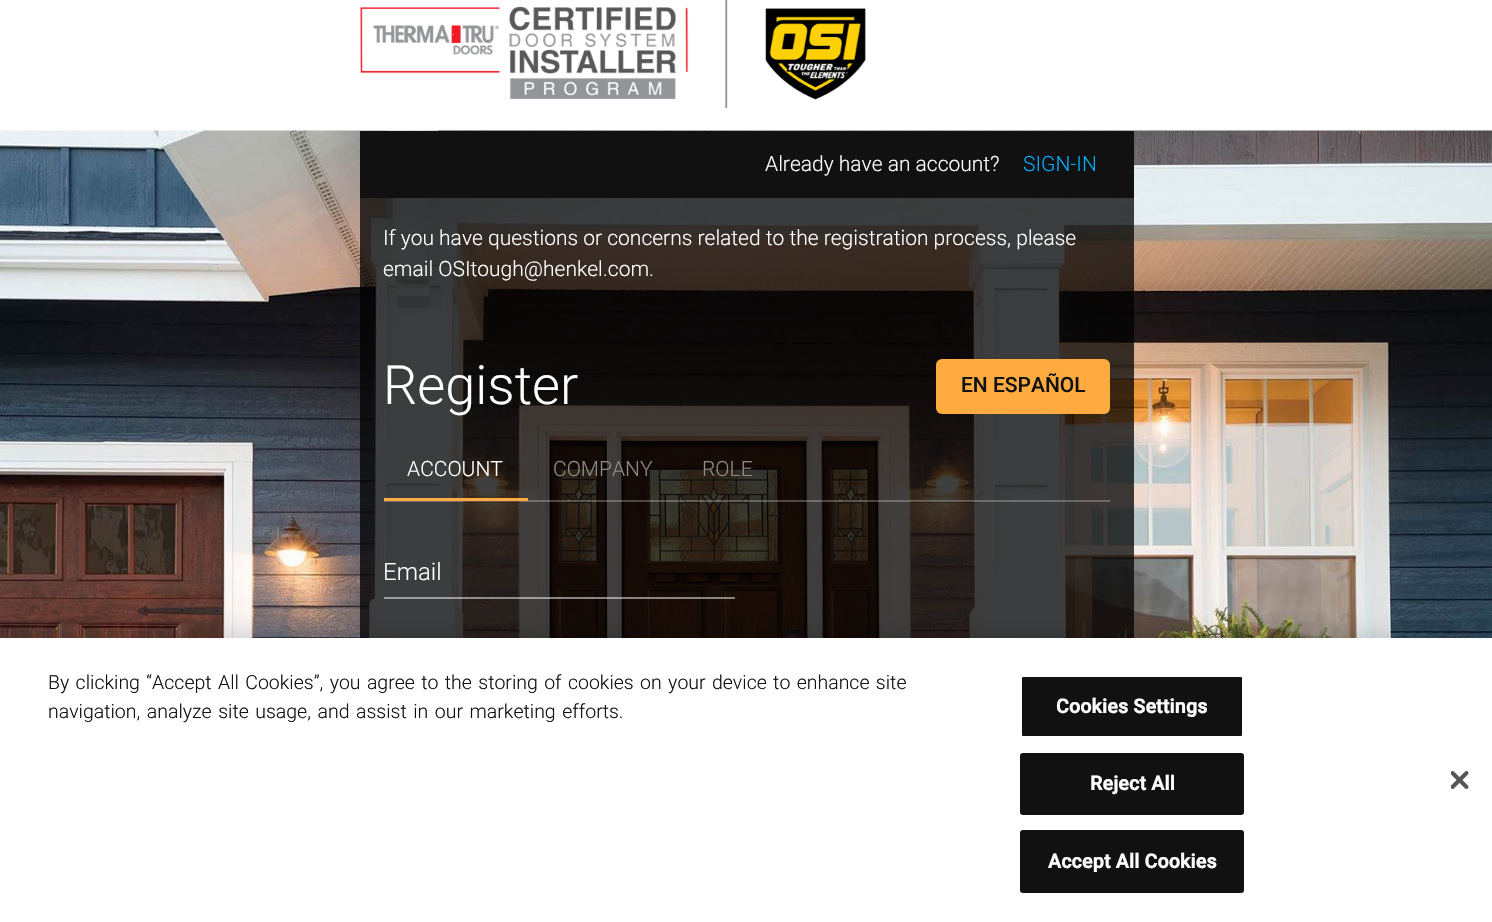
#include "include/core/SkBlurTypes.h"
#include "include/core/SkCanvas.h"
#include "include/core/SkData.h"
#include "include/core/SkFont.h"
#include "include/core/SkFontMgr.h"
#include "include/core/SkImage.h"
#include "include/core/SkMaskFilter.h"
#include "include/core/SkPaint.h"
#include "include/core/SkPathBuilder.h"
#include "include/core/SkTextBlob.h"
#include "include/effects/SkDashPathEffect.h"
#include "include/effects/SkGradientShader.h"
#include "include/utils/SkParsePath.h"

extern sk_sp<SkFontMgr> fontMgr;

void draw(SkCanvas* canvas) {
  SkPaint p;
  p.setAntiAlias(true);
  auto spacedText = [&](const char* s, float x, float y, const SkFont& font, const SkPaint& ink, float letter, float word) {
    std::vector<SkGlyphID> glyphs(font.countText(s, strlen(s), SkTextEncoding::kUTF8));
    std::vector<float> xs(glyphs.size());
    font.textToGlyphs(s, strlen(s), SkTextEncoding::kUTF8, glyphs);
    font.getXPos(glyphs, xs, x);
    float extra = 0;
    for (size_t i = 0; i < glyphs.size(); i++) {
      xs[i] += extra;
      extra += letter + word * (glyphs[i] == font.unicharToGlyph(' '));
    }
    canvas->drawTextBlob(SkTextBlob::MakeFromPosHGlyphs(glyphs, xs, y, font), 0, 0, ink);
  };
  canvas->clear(SK_ColorWHITE);
  canvas->drawImageRect(SkImages::DeferredFromEncodedData(SkData::MakeFromFileName("images/1.png")), SkRect::MakeLTRB(360, 0, 866, 108), SkSamplingOptions());
  canvas->drawImageRect(SkImages::DeferredFromEncodedData(SkData::MakeFromFileName("images/2.png")), SkRect::MakeLTRB(0, 130, 1492, 638), SkSamplingOptions());
  p.setColor(SkColorSetARGB(191, 0, 0, 0));
  canvas->drawRect(SkRect::MakeLTRB(360, 198, 1134, 638), p);
  p.setColor(SkColorSetRGB(17, 17, 17));
  canvas->drawRect(SkRect::MakeLTRB(360, 131, 1134, 198), p);
  p.setColor(SkColorSetRGB(255, 171, 64));
  canvas->drawRoundRect(SkRect::MakeLTRB(936, 359, 1110, 414), 6, 6, p);
  p.setColor(SkColorSetARGB(64, 255, 255, 255));
  canvas->drawRect(SkRect::MakeLTRB(384, 500, 1110, 502), p);
  p.setColor(SkColorSetRGB(255, 171, 64));
  canvas->drawRect(SkRect::MakeLTRB(384, 498, 528, 501), p);
  p.setColor(SkColorSetARGB(128, 255, 255, 255));
  canvas->drawRect(SkRect::MakeLTRB(384, 597, 735, 599), p);
  p.setColor(SkColorSetARGB(51, 0, 0, 0));
  p.setMaskFilter(SkMaskFilter::MakeBlur(kNormal_SkBlurStyle, 13.5f));
  canvas->drawRect(SkRect::MakeLTRB(0, 638, 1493, 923), p);
  p.setMaskFilter(nullptr);
  p.setColor(SK_ColorWHITE);
  canvas->drawRect(SkRect::MakeLTRB(0, 638, 1492, 922), p);
  p.setColor(SkColorSetRGB(17, 17, 17));
  canvas->drawRoundRect(SkRect::MakeLTRB(1021, 676, 1243, 737), 2, 2, p);
  p.setStyle(SkPaint::kStroke_Style);
  p.setStrokeWidth(2);
  p.setColor(SK_ColorWHITE);
  canvas->drawRoundRect(SkRect::MakeLTRB(1021, 676, 1243, 737), 2, 2, p);
  p.setStyle(SkPaint::kFill_Style);
  p.setColor(SkColorSetRGB(17, 17, 17));
  canvas->drawRoundRect(SkRect::MakeLTRB(1021, 754, 1243, 814), 2, 2, p);
  p.setStyle(SkPaint::kStroke_Style);
  canvas->drawRoundRect(SkRect::MakeLTRB(1021, 754, 1243, 814), 2, 2, p);
  p.setStyle(SkPaint::kFill_Style);
  canvas->drawRoundRect(SkRect::MakeLTRB(1021, 831, 1243, 892), 2, 2, p);
  p.setStyle(SkPaint::kStroke_Style);
  canvas->drawRoundRect(SkRect::MakeLTRB(1021, 831, 1243, 892), 2, 2, p);
  canvas->drawImageRect(SkImages::DeferredFromEncodedData(SkData::MakeFromFileName("images/3.png")), SkRect::MakeLTRB(1451, 771, 1469, 789), SkSamplingOptions());
  SkFont font1(fontMgr->matchFamilyStyle("Roboto", SkFontStyle(300, SkFontStyle::kNormal_Width, SkFontStyle::kUpright_Slant)), 21);
  font1.setSubpixel(true);
  p.setStyle(SkPaint::kFill_Style);
  p.setColor(SK_ColorWHITE);
  canvas->drawString("Already have an account?", 765, 171, font1, p);
  p.setColor(SkColorSetRGB(3, 169, 244));
  canvas->drawString("SIGN-IN", 1023, 171, font1, p);
  p.setColor(SK_ColorWHITE);
  canvas->drawString("If you have questions or concerns related to the registration process, please", 383, 245, font1, p);
  canvas->drawString("email OSItough@henkel.com.", 383, 276, font1, p);
  SkFont font2(fontMgr->matchFamilyStyle("Roboto", SkFontStyle(300, SkFontStyle::kNormal_Width, SkFontStyle::kUpright_Slant)), 54);
  font2.setSubpixel(true);
  canvas->drawString("Register", 383, 404, font2, p);
  SkFont font3(fontMgr->matchFamilyStyle("Roboto", SkFontStyle(500, SkFontStyle::kNormal_Width, SkFontStyle::kUpright_Slant)), 21);
  font3.setSubpixel(true);
  p.setColor(SkColorSetRGB(17, 17, 17));
  canvas->drawString("EN ESPAÑOL", 961, 392, font3, p);
  p.setColor(SK_ColorWHITE);
  canvas->drawString("ACCOUNT", 407, 476, font1, p);
  p.setColor(SkColorSetRGB(142, 138, 135));
  canvas->drawString("COMPANY", 553, 476, font1, p);
  canvas->drawString("ROLE", 702, 476, font1, p);
  SkFont font4(fontMgr->matchFamilyStyle("Roboto", SkFontStyle(300, SkFontStyle::kNormal_Width, SkFontStyle::kUpright_Slant)), 24);
  font4.setSubpixel(true);
  p.setColor(SK_ColorWHITE);
  canvas->drawString("Email", 383, 580, font4, p);
  SkFont font5(fontMgr->matchFamilyStyle("Roboto", SkFontStyle(300, SkFontStyle::kNormal_Width, SkFontStyle::kUpright_Slant)), 19.5f);
  font5.setSubpixel(true);
  p.setColor(SkColorSetRGB(17, 17, 17));
  spacedText("By clicking “Accept All Cookies”, you agree to the storing of cookies on your device to enhance site", 48, 689, font5, p, 0, 1.6f);
  spacedText("navigation, analyze site usage, and assist in our marketing efforts.", 48, 718, font5, p, 0, 1.75f);
  SkFont font6(fontMgr->matchFamilyStyle("Roboto", SkFontStyle::Bold()), 19.5f);
  font6.setSubpixel(true);
  p.setColor(SK_ColorWHITE);
  spacedText("Cookies Settings", 1056, 713, font6, p, 0.25f, 0);
  spacedText("Reject All", 1090, 790, font6, p, 0.25f, 0);
  spacedText("Accept All Cookies", 1048, 868, font6, p, 0.25f, 0);
}
